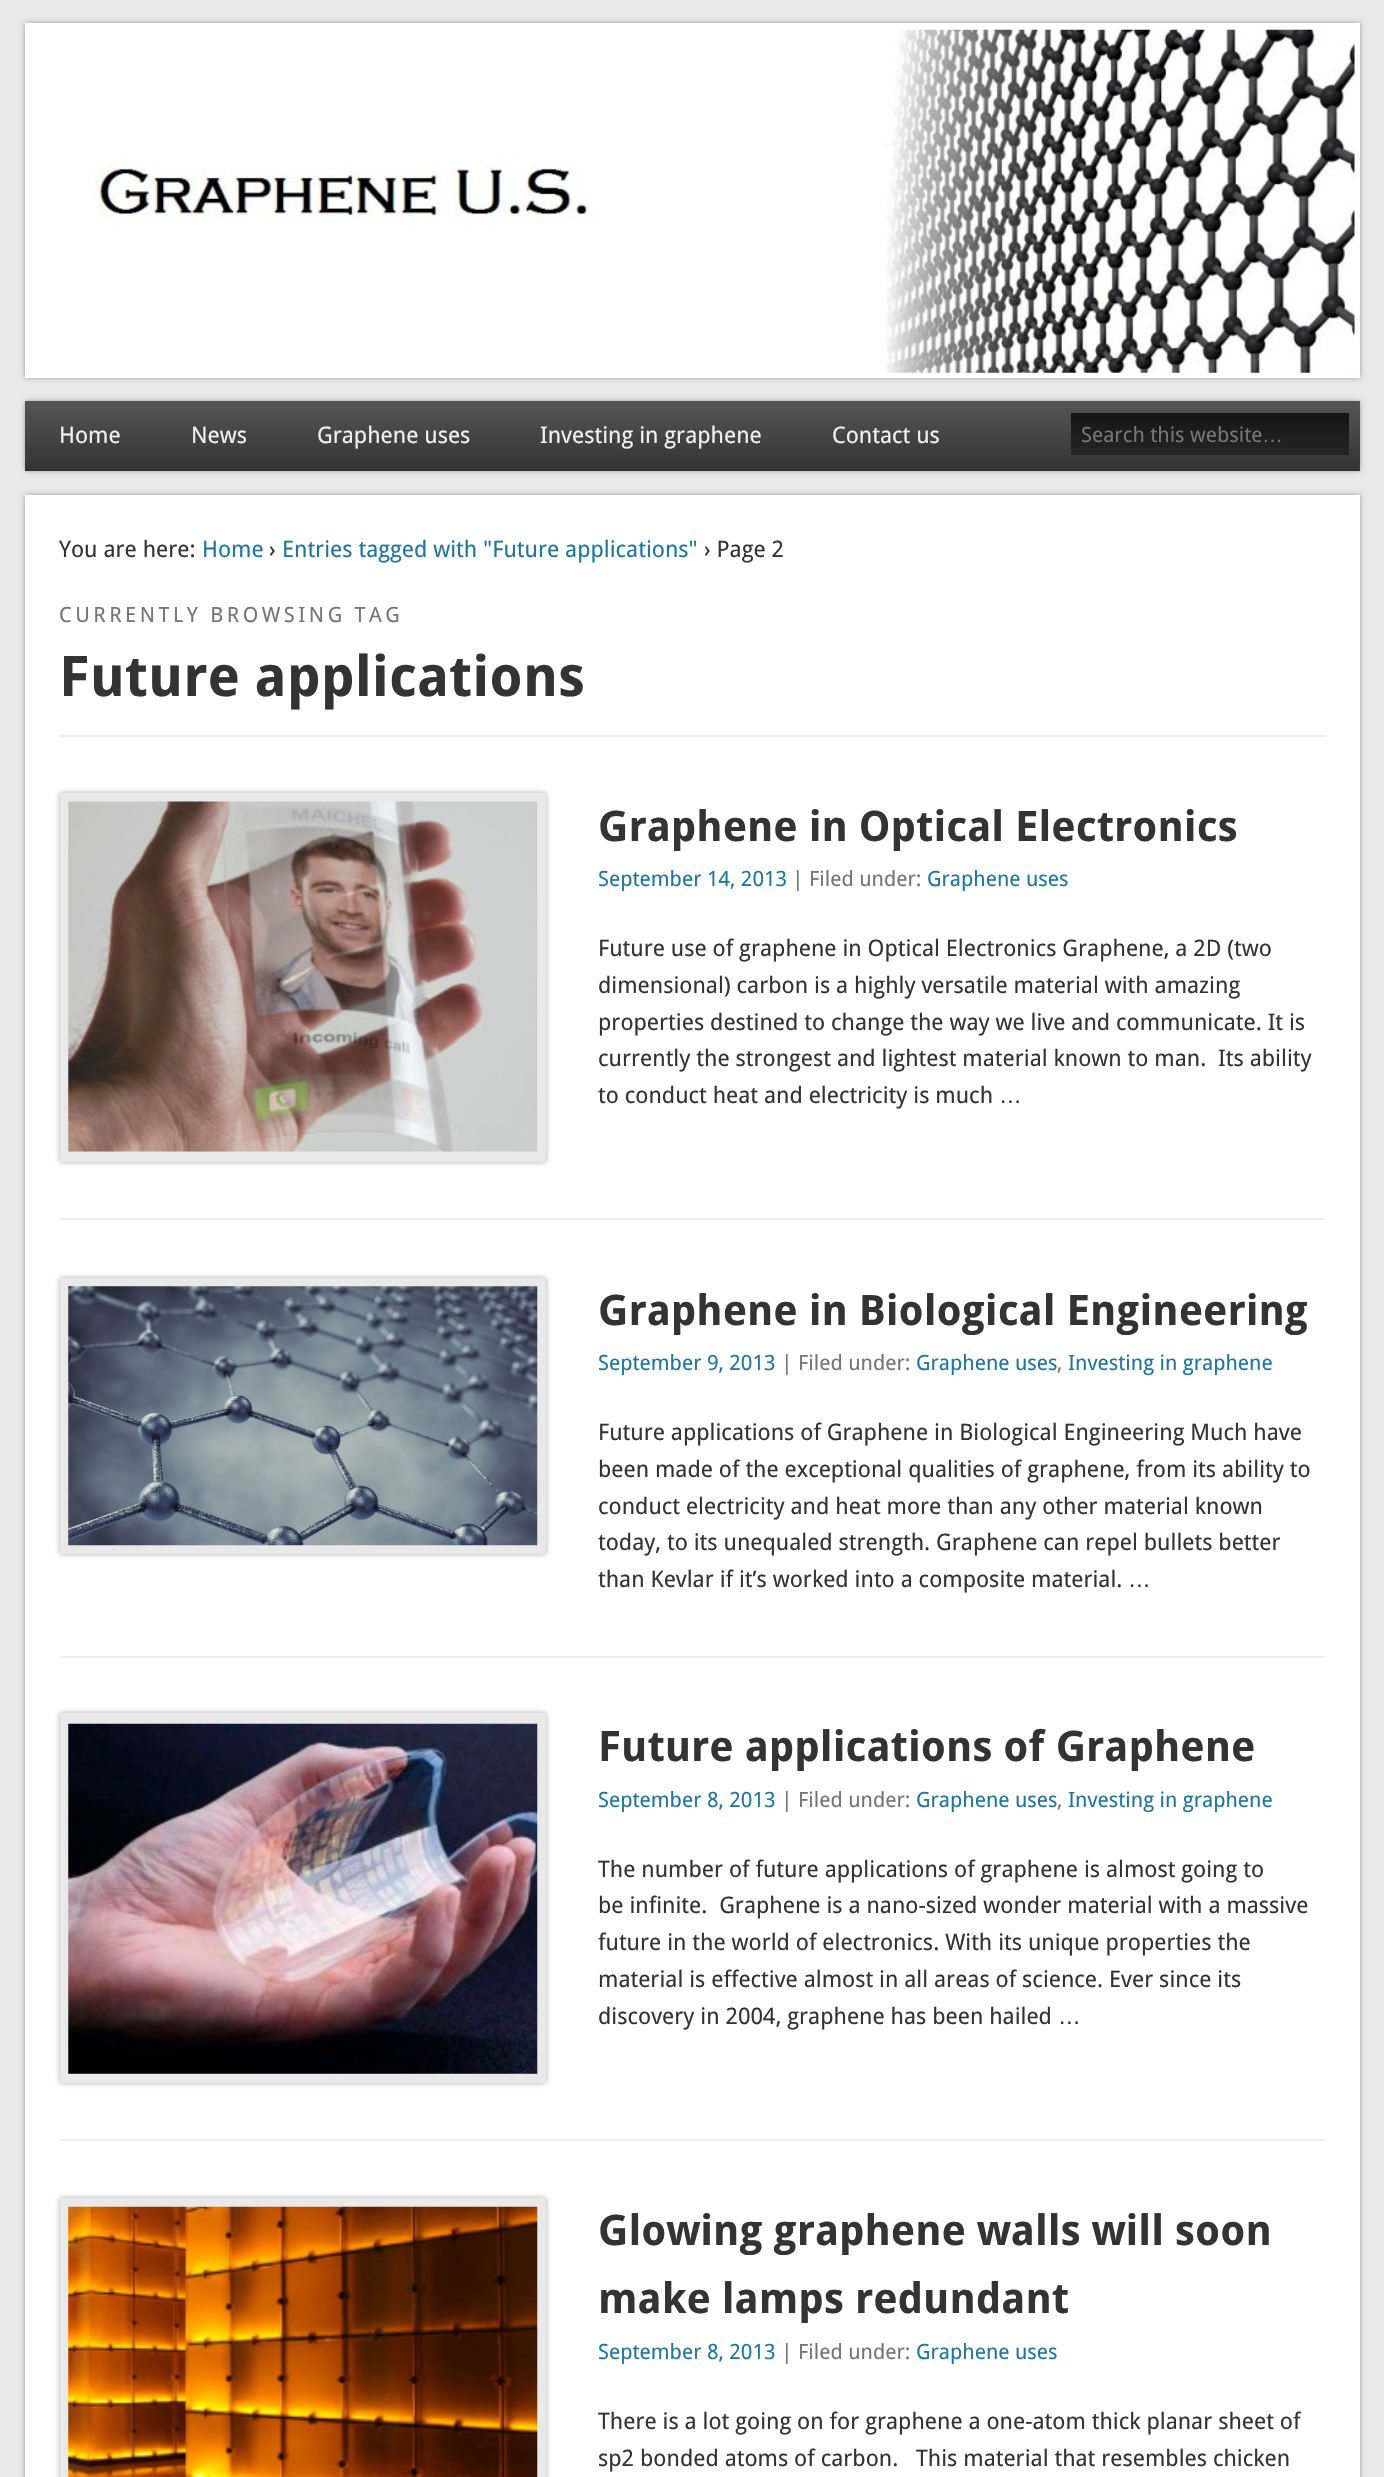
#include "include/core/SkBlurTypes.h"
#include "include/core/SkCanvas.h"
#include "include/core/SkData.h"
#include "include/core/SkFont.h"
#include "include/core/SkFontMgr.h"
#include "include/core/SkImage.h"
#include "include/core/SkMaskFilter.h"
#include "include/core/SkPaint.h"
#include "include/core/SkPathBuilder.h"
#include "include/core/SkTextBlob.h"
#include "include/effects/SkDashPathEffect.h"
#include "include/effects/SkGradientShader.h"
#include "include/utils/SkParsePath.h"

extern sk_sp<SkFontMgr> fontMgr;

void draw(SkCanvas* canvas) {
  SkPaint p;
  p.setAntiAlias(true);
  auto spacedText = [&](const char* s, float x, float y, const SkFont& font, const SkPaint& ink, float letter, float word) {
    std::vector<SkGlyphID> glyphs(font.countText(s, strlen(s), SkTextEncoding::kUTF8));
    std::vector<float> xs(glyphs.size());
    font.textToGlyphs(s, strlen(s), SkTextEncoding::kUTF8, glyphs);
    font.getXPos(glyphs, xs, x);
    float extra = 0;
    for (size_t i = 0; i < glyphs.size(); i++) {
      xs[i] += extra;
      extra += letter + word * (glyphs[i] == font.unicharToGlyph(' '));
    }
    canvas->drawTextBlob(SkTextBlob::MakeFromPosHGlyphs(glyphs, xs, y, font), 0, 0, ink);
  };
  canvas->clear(SkColorSetRGB(233, 233, 233));
  p.setColor(SkColorSetRGB(153, 153, 153));
  p.setMaskFilter(SkMaskFilter::MakeBlur(kNormal_SkBlurStyle, 2.5f));
  canvas->drawRect(SkRect::MakeLTRB(25, 23, 1360, 378), p);
  p.setMaskFilter(nullptr);
  p.setColor(SK_ColorWHITE);
  canvas->drawRect(SkRect::MakeLTRB(25, 23, 1360, 378), p);
  canvas->drawImageRect(SkImages::DeferredFromEncodedData(SkData::MakeFromFileName("images/1.png")), SkRect::MakeLTRB(92, 29, 1355, 373), SkSamplingOptions());
  p.setColor(SkColorSetRGB(153, 153, 153));
  p.setMaskFilter(SkMaskFilter::MakeBlur(kNormal_SkBlurStyle, 2.5f));
  canvas->drawRect(SkRect::MakeLTRB(25, 401, 1360, 471), p);
  p.setMaskFilter(nullptr);
  {
    const SkColor colors[] = {SkColorSetRGB(85, 85, 85), SkColorSetRGB(51, 51, 51), SkColorSetRGB(85, 85, 85), SkColorSetRGB(51, 51, 51)};
    const float stops[] = {0, 0.5f, 0.5f, 1};
    const SkPoint ends[] = {{692, 401}, {692, 541}};
    p.setShader(SkGradientShader::MakeLinear(ends, colors, stops, 4, SkTileMode::kClamp));
    p.setAlpha(255);
  }
  canvas->drawRect(SkRect::MakeLTRB(25, 401, 1360, 471), p);
  {
    const SkColor colors[] = {SkColorSetRGB(21, 21, 21), SkColorSetRGB(37, 37, 37)};
    const float stops[] = {0, 1};
    const SkPoint ends[] = {{1210, 413}, {1210, 455}};
    p.setShader(SkGradientShader::MakeLinear(ends, colors, stops, 2, SkTileMode::kClamp));
    p.setAlpha(255);
  }
  canvas->drawRect(SkRect::MakeLTRB(1071, 413, 1349, 455), p);
  p.setShader(nullptr);
  p.setColor(SkColorSetRGB(153, 153, 153));
  p.setMaskFilter(SkMaskFilter::MakeBlur(kNormal_SkBlurStyle, 2.5f));
  canvas->drawRect(SkRect::MakeLTRB(25, 495, 1360, 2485), p);
  p.setMaskFilter(nullptr);
  p.setColor(SK_ColorWHITE);
  canvas->drawRect(SkRect::MakeLTRB(25, 495, 1360, 2477), p);
  p.setColor(SkColorSetRGB(238, 238, 238));
  canvas->drawRect(SkRect::MakeLTRB(60, 735, 1325, 737), p);
  p.setColor(SkColorSetRGB(170, 170, 170));
  p.setMaskFilter(SkMaskFilter::MakeBlur(kNormal_SkBlurStyle, 2.5f));
  canvas->drawRect(SkRect::MakeLTRB(60, 793, 546, 1162), p);
  p.setMaskFilter(nullptr);
  p.setColor(SkColorSetRGB(233, 233, 233));
  canvas->drawRect(SkRect::MakeLTRB(60, 793, 546, 1162), p);
  canvas->drawImageRect(SkImages::DeferredFromEncodedData(SkData::MakeFromFileName("images/2.png")), SkRect::MakeLTRB(68, 801, 538, 1152), SkSamplingOptions());
  p.setColor(SkColorSetRGB(238, 238, 238));
  canvas->drawRect(SkRect::MakeLTRB(60, 1218, 1325, 1220), p);
  p.setColor(SkColorSetRGB(170, 170, 170));
  p.setMaskFilter(SkMaskFilter::MakeBlur(kNormal_SkBlurStyle, 2.5f));
  canvas->drawRect(SkRect::MakeLTRB(60, 1278, 546, 1554), p);
  p.setMaskFilter(nullptr);
  p.setColor(SkColorSetRGB(233, 233, 233));
  canvas->drawRect(SkRect::MakeLTRB(60, 1278, 546, 1554), p);
  canvas->drawImageRect(SkImages::DeferredFromEncodedData(SkData::MakeFromFileName("images/3.png")), SkRect::MakeLTRB(68, 1286, 538, 1546), SkSamplingOptions());
  p.setColor(SkColorSetRGB(238, 238, 238));
  canvas->drawRect(SkRect::MakeLTRB(60, 1656, 1325, 1658), p);
  p.setColor(SkColorSetRGB(170, 170, 170));
  p.setMaskFilter(SkMaskFilter::MakeBlur(kNormal_SkBlurStyle, 2.5f));
  canvas->drawRect(SkRect::MakeLTRB(60, 1713, 546, 2083), p);
  p.setMaskFilter(nullptr);
  p.setColor(SkColorSetRGB(233, 233, 233));
  canvas->drawRect(SkRect::MakeLTRB(60, 1713, 546, 2083), p);
  canvas->drawImageRect(SkImages::DeferredFromEncodedData(SkData::MakeFromFileName("images/4.png")), SkRect::MakeLTRB(68, 1723, 538, 2074), SkSamplingOptions());
  p.setColor(SkColorSetRGB(238, 238, 238));
  canvas->drawRect(SkRect::MakeLTRB(60, 2139, 1325, 2141), p);
  p.setColor(SkColorSetRGB(170, 170, 170));
  p.setMaskFilter(SkMaskFilter::MakeBlur(kNormal_SkBlurStyle, 2.5f));
  canvas->drawRect(SkRect::MakeLTRB(60, 2198, 546, 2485), p);
  p.setMaskFilter(nullptr);
  p.setColor(SkColorSetRGB(233, 233, 233));
  canvas->drawRect(SkRect::MakeLTRB(60, 2198, 546, 2477), p);
  canvas->drawImageRect(SkImages::DeferredFromEncodedData(SkData::MakeFromFileName("images/5.png")), SkRect::MakeLTRB(68, 2206, 538, 2477), SkSamplingOptions());
  SkFont font1(fontMgr->matchFamilyStyle("Droid Sans", SkFontStyle::Normal()), 22.75f);
  font1.setSubpixel(true);
  p.setColor(SkColorSetRGB(240, 240, 240));
  canvas->drawString("Home", 59, 443, font1, p);
  canvas->drawString("News", 191, 443, font1, p);
  canvas->drawString("Graphene uses", 317, 443, font1, p);
  canvas->drawString("Investing in graphene", 540, 443, font1, p);
  canvas->drawString("Contact us", 832, 443, font1, p);
  SkFont font2(fontMgr->matchFamilyStyle("Droid Sans", SkFontStyle::Normal()), 21);
  font2.setSubpixel(true);
  p.setColor(SkColorSetRGB(117, 117, 117));
  canvas->drawString("Search this website", 1081, 442, font2, p);
  SkFont font3(fontMgr->matchFamilyStyle("Liberation Sans", SkFontStyle::Normal()), 21);
  font3.setSubpixel(true);
  canvas->drawString("…", 1262, 442, font3, p);
  p.setColor(SkColorSetRGB(51, 51, 51));
  canvas->drawString("You are here:", 59, 557, font1, p);
  p.setColor(SkColorSetRGB(33, 117, 155));
  canvas->drawString("Home", 202, 557, font1, p);
  p.setColor(SkColorSetRGB(51, 51, 51));
  canvas->drawString("›", 269, 557, font1, p);
  p.setColor(SkColorSetRGB(33, 117, 155));
  canvas->drawString("Entries tagged with \"Future applications\"", 282, 557, font1, p);
  p.setColor(SkColorSetRGB(51, 51, 51));
  canvas->drawString("› Page 2", 704, 557, font1, p);
  p.setColor(SkColorSetRGB(117, 117, 117));
  spacedText("CURRENTLY BROWSING TAG", 59, 622, font2, p, 3.5f, 0);
  SkFont font4(fontMgr->matchFamilyStyle("Droid Sans", SkFontStyle::Bold()), 56);
  font4.setSubpixel(true);
  p.setColor(SkColorSetRGB(51, 51, 51));
  canvas->drawString("Future applications", 59, 696, font4, p);
  SkFont font5(fontMgr->matchFamilyStyle("Droid Sans", SkFontStyle::Bold()), 42);
  font5.setSubpixel(true);
  canvas->drawString("Graphene in Optical Electronics", 598, 841, font5, p);
  p.setColor(SkColorSetRGB(33, 117, 155));
  canvas->drawString("September 14, 2013", 598, 886, font2, p);
  p.setColor(SkColorSetRGB(117, 117, 117));
  canvas->drawString("| Filed under:", 792, 886, font2, p);
  p.setColor(SkColorSetRGB(33, 117, 155));
  canvas->drawString("Graphene uses", 927, 886, font2, p);
  p.setColor(SkColorSetRGB(51, 51, 51));
  canvas->drawString("Future use of graphene in Optical Electronics Graphene, a 2D (two", 598, 956, font1, p);
  canvas->drawString("dimensional) carbon is a highly versatile material with amazing", 598, 993, font1, p);
  canvas->drawString("properties destined to change the way we live and communicate. It is", 598, 1030, font1, p);
  canvas->drawString("currently the strongest and lightest material known to man.  Its ability", 598, 1066, font1, p);
  canvas->drawString("to conduct heat and electricity is much", 598, 1103, font1, p);
  SkFont font6(fontMgr->matchFamilyStyle("Liberation Sans", SkFontStyle::Normal()), 22.75f);
  font6.setSubpixel(true);
  canvas->drawString("…", 999, 1103, font6, p);
  canvas->drawString("Graphene in Biological Engineering", 598, 1325, font5, p);
  p.setColor(SkColorSetRGB(33, 117, 155));
  canvas->drawString("September 9, 2013", 598, 1370, font2, p);
  p.setColor(SkColorSetRGB(117, 117, 117));
  canvas->drawString("| Filed under:", 781, 1370, font2, p);
  p.setColor(SkColorSetRGB(33, 117, 155));
  canvas->drawString("Graphene uses", 916, 1370, font2, p);
  p.setColor(SkColorSetRGB(117, 117, 117));
  canvas->drawString(",", 1057, 1370, font2, p);
  p.setColor(SkColorSetRGB(33, 117, 155));
  canvas->drawString("Investing in graphene", 1068, 1370, font2, p);
  p.setColor(SkColorSetRGB(51, 51, 51));
  canvas->drawString("Future applications of Graphene in Biological Engineering Much have", 598, 1440, font1, p);
  canvas->drawString("been made of the exceptional qualities of graphene, from its ability to", 598, 1477, font1, p);
  canvas->drawString("conduct electricity and heat more than any other material known", 598, 1514, font1, p);
  canvas->drawString("today, to its unequaled strength. Graphene can repel bullets better", 598, 1550, font1, p);
  canvas->drawString("than Kevlar if it’s worked into a composite material.", 598, 1587, font1, p);
  canvas->drawString("…", 1128, 1587, font6, p);
  canvas->drawString("Future applications of Graphene", 598, 1761, font5, p);
  p.setColor(SkColorSetRGB(33, 117, 155));
  canvas->drawString("September 8, 2013", 598, 1807, font2, p);
  p.setColor(SkColorSetRGB(117, 117, 117));
  canvas->drawString("| Filed under:", 781, 1807, font2, p);
  p.setColor(SkColorSetRGB(33, 117, 155));
  canvas->drawString("Graphene uses", 916, 1807, font2, p);
  p.setColor(SkColorSetRGB(117, 117, 117));
  canvas->drawString(",", 1057, 1807, font2, p);
  p.setColor(SkColorSetRGB(33, 117, 155));
  canvas->drawString("Investing in graphene", 1068, 1807, font2, p);
  p.setColor(SkColorSetRGB(51, 51, 51));
  canvas->drawString("The number of future applications of graphene is almost going to", 598, 1877, font1, p);
  canvas->drawString("be infinite.  Graphene is a nano-sized wonder material with a massive", 598, 1913, font1, p);
  canvas->drawString("future in the world of electronics. With its unique properties the", 598, 1950, font1, p);
  canvas->drawString("material is effective almost in all areas of science. Ever since its", 598, 1987, font1, p);
  canvas->drawString("discovery in 2004, graphene has been hailed", 598, 2024, font1, p);
  canvas->drawString("…", 1058, 2024, font6, p);
  canvas->drawString("Glowing graphene walls will soon", 598, 2245, font5, p);
  canvas->drawString("make lamps redundant", 598, 2313, font5, p);
  p.setColor(SkColorSetRGB(33, 117, 155));
  canvas->drawString("September 8, 2013", 598, 2359, font2, p);
  p.setColor(SkColorSetRGB(117, 117, 117));
  canvas->drawString("| Filed under:", 781, 2359, font2, p);
  p.setColor(SkColorSetRGB(33, 117, 155));
  canvas->drawString("Graphene uses", 916, 2359, font2, p);
  p.setColor(SkColorSetRGB(51, 51, 51));
  canvas->drawString("There is a lot going on for graphene a one-atom thick planar sheet of", 598, 2429, font1, p);
  canvas->drawString("sp2 bonded atoms of carbon.   This material that resembles chicken", 598, 2466, font1, p);
}
